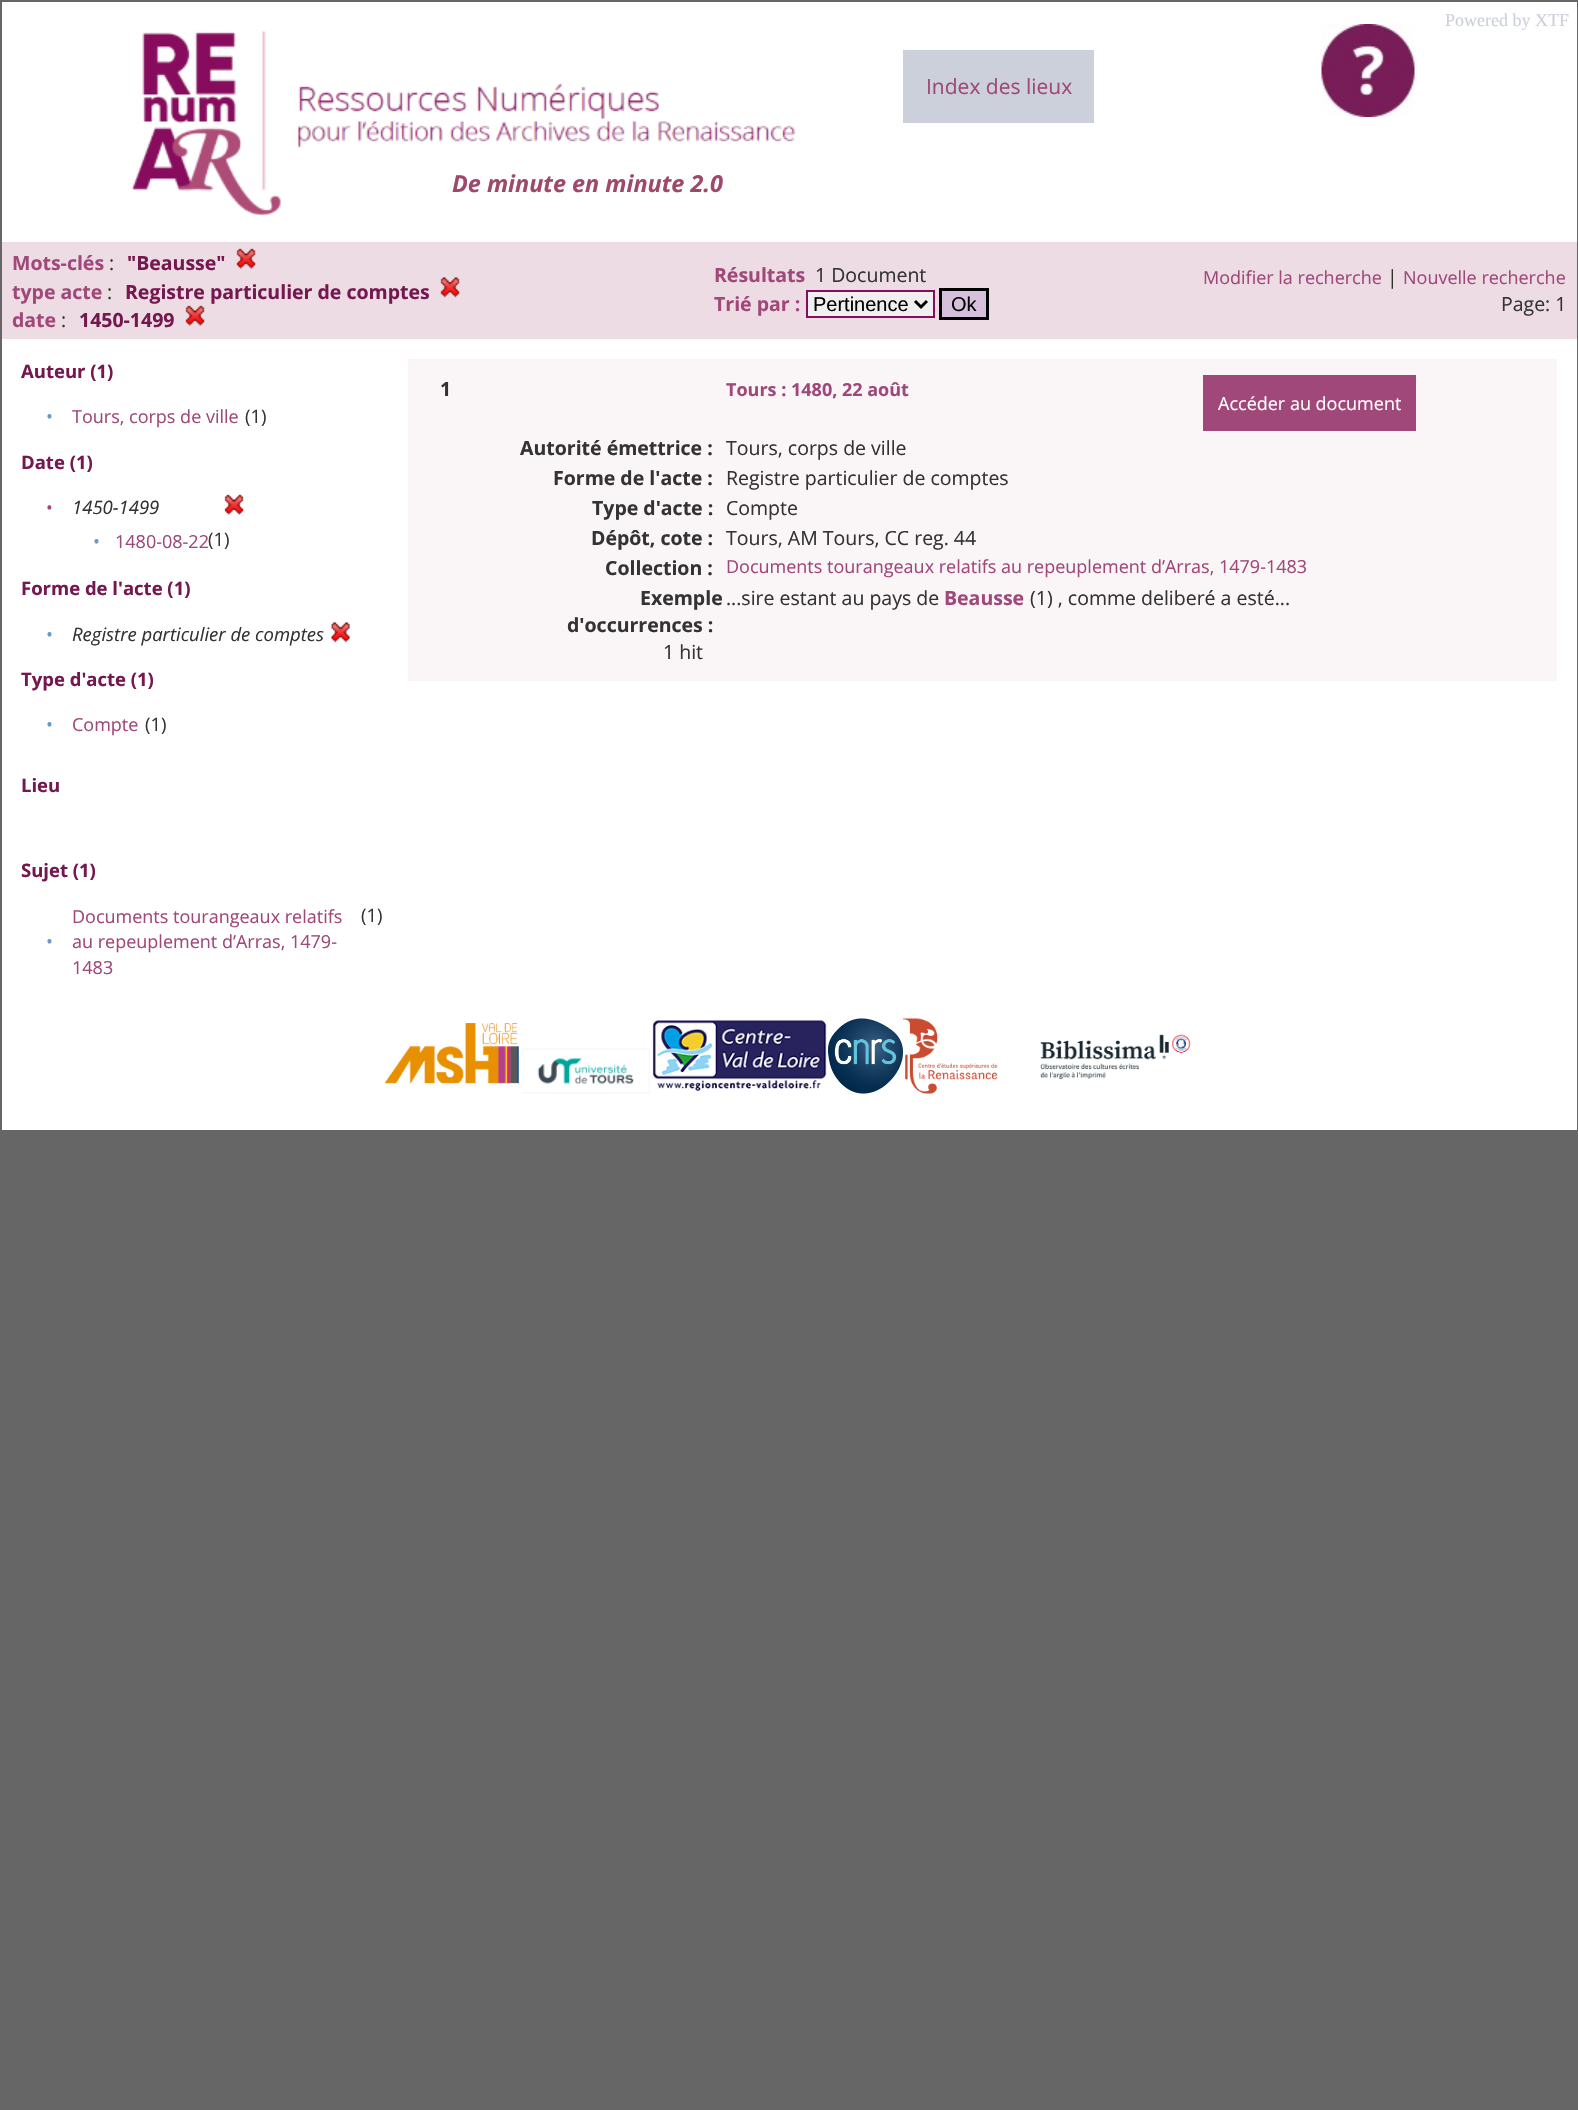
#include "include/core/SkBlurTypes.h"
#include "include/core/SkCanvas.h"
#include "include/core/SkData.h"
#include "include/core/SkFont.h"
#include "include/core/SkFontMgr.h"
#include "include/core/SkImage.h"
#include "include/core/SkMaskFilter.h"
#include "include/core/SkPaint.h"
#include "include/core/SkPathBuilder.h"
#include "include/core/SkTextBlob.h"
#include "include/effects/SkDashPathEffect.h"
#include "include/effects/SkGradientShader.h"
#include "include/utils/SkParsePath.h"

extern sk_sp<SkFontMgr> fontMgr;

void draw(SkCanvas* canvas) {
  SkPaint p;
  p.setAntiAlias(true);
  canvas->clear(SkColorSetRGB(102, 102, 102));
  p.setColor(SK_ColorWHITE);
  canvas->drawRect(SkRect::MakeLTRB(2, 2, 1577, 242), p);
  canvas->drawImageRect(SkImages::DeferredFromEncodedData(SkData::MakeFromFileName("images/1.png")), SkRect::MakeLTRB(131, 31, 796, 216), SkSamplingOptions());
  p.setColor(SkColorSetRGB(204, 208, 219));
  canvas->drawRect(SkRect::MakeLTRB(903, 50, 1094, 123), p);
  canvas->drawImageRect(SkImages::DeferredFromEncodedData(SkData::MakeFromFileName("images/2.png")), SkRect::MakeLTRB(1321, 24, 1415, 117), SkSamplingOptions());
  p.setColor(SkColorSetRGB(237, 220, 227));
  canvas->drawRect(SkRect::MakeLTRB(2, 242, 1577, 339), p);
  canvas->drawImageRect(SkImages::DeferredFromEncodedData(SkData::MakeFromFileName("images/3.png")), SkRect::MakeLTRB(236, 248, 256, 269), SkSamplingOptions());
  canvas->drawImageRect(SkImages::DeferredFromEncodedData(SkData::MakeFromFileName("images/4.png")), SkRect::MakeLTRB(440, 277, 460, 298), SkSamplingOptions());
  canvas->drawImageRect(SkImages::DeferredFromEncodedData(SkData::MakeFromFileName("images/3.png")), SkRect::MakeLTRB(185, 305, 205, 326), SkSamplingOptions());
  p.setColor(SkColorSetRGB(239, 239, 239));
  canvas->drawRect(SkRect::MakeLTRB(807, 291, 934, 317), p);
  p.setStyle(SkPaint::kStroke_Style);
  p.setStrokeWidth(2);
  p.setColor(SkColorSetRGB(136, 12, 94));
  canvas->drawRect(SkRect::MakeLTRB(807, 291, 934, 317), p);
  p.setStrokeWidth(3);
  p.setColor(SK_ColorBLACK);
  canvas->drawPath(SkPathBuilder().moveTo(915, 301).lineTo(921, 307).lineTo(927, 301).detach(), p);
  p.setStyle(SkPaint::kFill_Style);
  p.setColor(SkColorSetRGB(214, 192, 219));
  canvas->drawRect(SkRect::MakeLTRB(940.5f, 289.5f, 987.5f, 318.5f), p);
  p.setStyle(SkPaint::kStroke_Style);
  p.setColor(SK_ColorBLACK);
  canvas->drawRect(SkRect::MakeLTRB(940.5f, 289.5f, 987.5f, 318.5f), p);
  p.setStyle(SkPaint::kFill_Style);
  p.setColor(SK_ColorWHITE);
  canvas->drawRect(SkRect::MakeLTRB(2, 339, 1577, 1130), p);
  canvas->drawImageRect(SkImages::DeferredFromEncodedData(SkData::MakeFromFileName("images/5.png")), SkRect::MakeLTRB(224, 494, 244, 515), SkSamplingOptions());
  canvas->drawImageRect(SkImages::DeferredFromEncodedData(SkData::MakeFromFileName("images/6.png")), SkRect::MakeLTRB(331, 622, 350, 643), SkSamplingOptions());
  p.setColor(SkColorSetRGB(250, 245, 247));
  canvas->drawRect(SkRect::MakeLTRB(408, 359, 1557, 681), p);
  p.setColor(SkColorSetRGB(159, 72, 121));
  canvas->drawRect(SkRect::MakeLTRB(1203, 375, 1416, 431), p);
  canvas->drawImageRect(SkImages::DeferredFromEncodedData(SkData::MakeFromFileName("images/7.png")), SkRect::MakeLTRB(384, 1023, 519, 1084), SkSamplingOptions());
  canvas->drawImageRect(SkImages::DeferredFromEncodedData(SkData::MakeFromFileName("images/8.png")), SkRect::MakeLTRB(522, 1048, 650, 1094), SkSamplingOptions());
  canvas->drawImageRect(SkImages::DeferredFromEncodedData(SkData::MakeFromFileName("images/9.png")), SkRect::MakeLTRB(652, 1020, 827, 1091), SkSamplingOptions());
  canvas->drawImageRect(SkImages::DeferredFromEncodedData(SkData::MakeFromFileName("images/10.png")), SkRect::MakeLTRB(828, 1018, 903, 1094), SkSamplingOptions());
  canvas->drawImageRect(SkImages::DeferredFromEncodedData(SkData::MakeFromFileName("images/11.png")), SkRect::MakeLTRB(903, 1018, 998, 1094), SkSamplingOptions());
  canvas->drawImageRect(SkImages::DeferredFromEncodedData(SkData::MakeFromFileName("images/12.png")), SkRect::MakeLTRB(1040, 1034, 1191, 1079), SkSamplingOptions());
  SkFont font1(fontMgr->matchFamilyStyle("Liberation Serif", SkFontStyle::Normal()), 18);
  font1.setSubpixel(true);
  p.setColor(SkColorSetRGB(204, 208, 219));
  canvas->drawString("Powered by XTF", 1445, 26, font1, p);
  SkFont font2(fontMgr->matchFamilyStyle("Open Sans", SkFontStyle::Normal()), 21);
  font2.setSubpixel(true);
  p.setColor(SkColorSetRGB(159, 72, 121));
  canvas->drawString("Index des lieux", 926, 94, font2, p);
  SkFont font3(fontMgr->matchFamilyStyle("Open Sans", SkFontStyle::BoldItalic()), 23.4f);
  font3.setSubpixel(true);
  p.setColor(SkColorSetRGB(159, 72, 108));
  canvas->drawString("De minute en minute 2.0", 452, 192, font3, p);
  SkFont font4(fontMgr->matchFamilyStyle("Open Sans", SkFontStyle::Bold()), 19.5f);
  font4.setSubpixel(true);
  p.setColor(SkColorSetRGB(159, 72, 121));
  canvas->drawString("Mots-clés", 12, 270, font4, p);
  SkFont font5(fontMgr->matchFamilyStyle("Open Sans", SkFontStyle::Normal()), 19.5f);
  font5.setSubpixel(true);
  p.setColor(SkColorSetRGB(51, 51, 51));
  canvas->drawString(":", 109, 270, font5, p);
  p.setColor(SkColorSetRGB(116, 24, 79));
  canvas->drawString("\"Beausse\"", 127, 270, font4, p);
  p.setColor(SkColorSetRGB(159, 72, 121));
  canvas->drawString("type acte", 12, 299, font4, p);
  p.setColor(SkColorSetRGB(51, 51, 51));
  canvas->drawString(":", 107, 299, font5, p);
  p.setColor(SkColorSetRGB(116, 24, 79));
  canvas->drawString("Registre particulier de comptes", 125, 299, font4, p);
  p.setColor(SkColorSetRGB(159, 72, 121));
  canvas->drawString("date", 12, 327, font4, p);
  p.setColor(SkColorSetRGB(51, 51, 51));
  canvas->drawString(":", 61, 327, font5, p);
  p.setColor(SkColorSetRGB(116, 24, 79));
  canvas->drawString("1450-1499", 79, 327, font4, p);
  p.setColor(SkColorSetRGB(159, 72, 121));
  canvas->drawString("Résultats", 714, 282, font4, p);
  p.setColor(SkColorSetRGB(51, 51, 51));
  canvas->drawString("1 Document", 815, 282, font5, p);
  p.setColor(SkColorSetRGB(159, 72, 121));
  canvas->drawString("Trié par :", 714, 311, font4, p);
  SkFont font6(fontMgr->matchFamilyStyle("Liberation Sans", SkFontStyle::Normal()), 20);
  font6.setSubpixel(true);
  p.setColor(SK_ColorBLACK);
  canvas->drawString("Pertinence", 813, 311, font6, p);
  canvas->drawString("Ok", 951, 311, font6, p);
  SkFont font7(fontMgr->matchFamilyStyle("Open Sans", SkFontStyle::Normal()), 18);
  font7.setSubpixel(true);
  p.setColor(SkColorSetRGB(159, 72, 121));
  canvas->drawString("Modifier la recherche", 1203, 284, font7, p);
  p.setColor(SkColorSetRGB(51, 51, 51));
  canvas->drawString("|", 1387, 284, font5, p);
  p.setColor(SkColorSetRGB(159, 72, 121));
  canvas->drawString("Nouvelle recherche", 1403, 284, font7, p);
  p.setColor(SkColorSetRGB(51, 51, 51));
  canvas->drawString("Page: 1", 1501, 311, font5, p);
  SkFont font8(fontMgr->matchFamilyStyle("Open Sans", SkFontStyle::Bold()), 18.5f);
  font8.setSubpixel(true);
  p.setColor(SkColorSetRGB(116, 24, 79));
  canvas->drawString("Auteur (1)", 21, 378, font8, p);
  SkFont font9(fontMgr->matchFamilyStyle("Open Sans", SkFontStyle::Normal()), 18.5f);
  font9.setSubpixel(true);
  p.setColor(SkColorSetRGB(102, 153, 204));
  canvas->drawString("•", 46, 423, font9, p);
  p.setColor(SkColorSetRGB(159, 72, 121));
  canvas->drawString("Tours, corps de ville", 72, 423, font7, p);
  p.setColor(SkColorSetRGB(51, 51, 51));
  canvas->drawString("(1)", 245, 423, font9, p);
  p.setColor(SkColorSetRGB(116, 24, 79));
  canvas->drawString("Date (1)", 21, 469, font8, p);
  p.setColor(SkColorSetRGB(159, 72, 121));
  canvas->drawString("•", 46, 514, font7, p);
  SkFont font10(fontMgr->matchFamilyStyle("Open Sans", SkFontStyle::Italic()), 18.5f);
  font10.setSubpixel(true);
  p.setColor(SkColorSetRGB(51, 51, 51));
  canvas->drawString("1450-1499", 72, 514, font10, p);
  p.setColor(SkColorSetRGB(102, 153, 204));
  canvas->drawString("•", 93, 548, font9, p);
  p.setColor(SkColorSetRGB(159, 72, 121));
  canvas->drawString("1480-08-22", 115, 548, font7, p);
  p.setColor(SkColorSetRGB(51, 51, 51));
  canvas->drawString("(1)", 208, 546, font9, p);
  p.setColor(SkColorSetRGB(116, 24, 79));
  canvas->drawString("Forme de l'acte (1)", 21, 595, font8, p);
  p.setColor(SkColorSetRGB(102, 153, 204));
  canvas->drawString("•", 46, 641, font9, p);
  p.setColor(SkColorSetRGB(51, 51, 51));
  canvas->drawString("Registre particulier de comptes", 72, 641, font10, p);
  p.setColor(SkColorSetRGB(116, 24, 79));
  canvas->drawString("Type d'acte (1)", 21, 686, font8, p);
  p.setColor(SkColorSetRGB(102, 153, 204));
  canvas->drawString("•", 46, 731, font9, p);
  p.setColor(SkColorSetRGB(159, 72, 121));
  canvas->drawString("Compte", 72, 731, font7, p);
  p.setColor(SkColorSetRGB(51, 51, 51));
  canvas->drawString("(1)", 145, 731, font9, p);
  p.setColor(SkColorSetRGB(116, 24, 79));
  canvas->drawString("Lieu", 21, 792, font8, p);
  canvas->drawString("Sujet (1)", 21, 877, font8, p);
  p.setColor(SkColorSetRGB(102, 153, 204));
  canvas->drawString("•", 46, 948, font9, p);
  p.setColor(SkColorSetRGB(159, 72, 121));
  canvas->drawString("Documents tourangeaux relatifs", 72, 923, font7, p);
  canvas->drawString("au repeuplement d’Arras, 1479-", 72, 948, font7, p);
  canvas->drawString("1483", 72, 974, font7, p);
  p.setColor(SkColorSetRGB(51, 51, 51));
  canvas->drawString("(1)", 361, 922, font9, p);
  canvas->drawString("1", 440, 396, font4, p);
  SkFont font11(fontMgr->matchFamilyStyle("Open Sans", SkFontStyle::Bold()), 18);
  font11.setSubpixel(true);
  p.setColor(SkColorSetRGB(159, 72, 121));
  canvas->drawString("Tours : 1480, 22 août", 726, 396, font11, p);
  p.setColor(SK_ColorWHITE);
  canvas->drawString("Accéder au document", 1218, 410, font7, p);
  p.setColor(SkColorSetRGB(51, 51, 51));
  canvas->drawString("Autorité émettrice :", 520, 455, font4, p);
  canvas->drawString("Tours, corps de ville", 726, 455, font5, p);
  canvas->drawString("Forme de l'acte :", 553, 485, font4, p);
  canvas->drawString("Registre particulier de comptes", 726, 485, font5, p);
  canvas->drawString("Type d'acte :", 592, 515, font4, p);
  canvas->drawString("Compte", 726, 515, font5, p);
  canvas->drawString("Dépôt, cote :", 591, 545, font4, p);
  canvas->drawString("Tours, AM Tours, CC reg. 44", 726, 545, font5, p);
  canvas->drawString("Collection :", 605, 575, font4, p);
  p.setColor(SkColorSetRGB(159, 72, 121));
  canvas->drawString("Documents tourangeaux relatifs au repeuplement d’Arras, 1479-1483", 726, 573, font7, p);
  p.setColor(SkColorSetRGB(51, 51, 51));
  canvas->drawString("Exemple", 640, 605, font4, p);
  canvas->drawString("d'occurrences :", 567, 632, font4, p);
  canvas->drawString("1 hit", 663, 659, font5, p);
  canvas->drawString("...sire estant au pays de", 726, 605, font5, p);
  p.setColor(SkColorSetRGB(159, 72, 121));
  canvas->drawString("Beausse", 944, 605, font4, p);
  p.setColor(SkColorSetRGB(51, 51, 51));
  canvas->drawString("(1) , comme deliberé a esté...", 1030, 605, font5, p);
}
